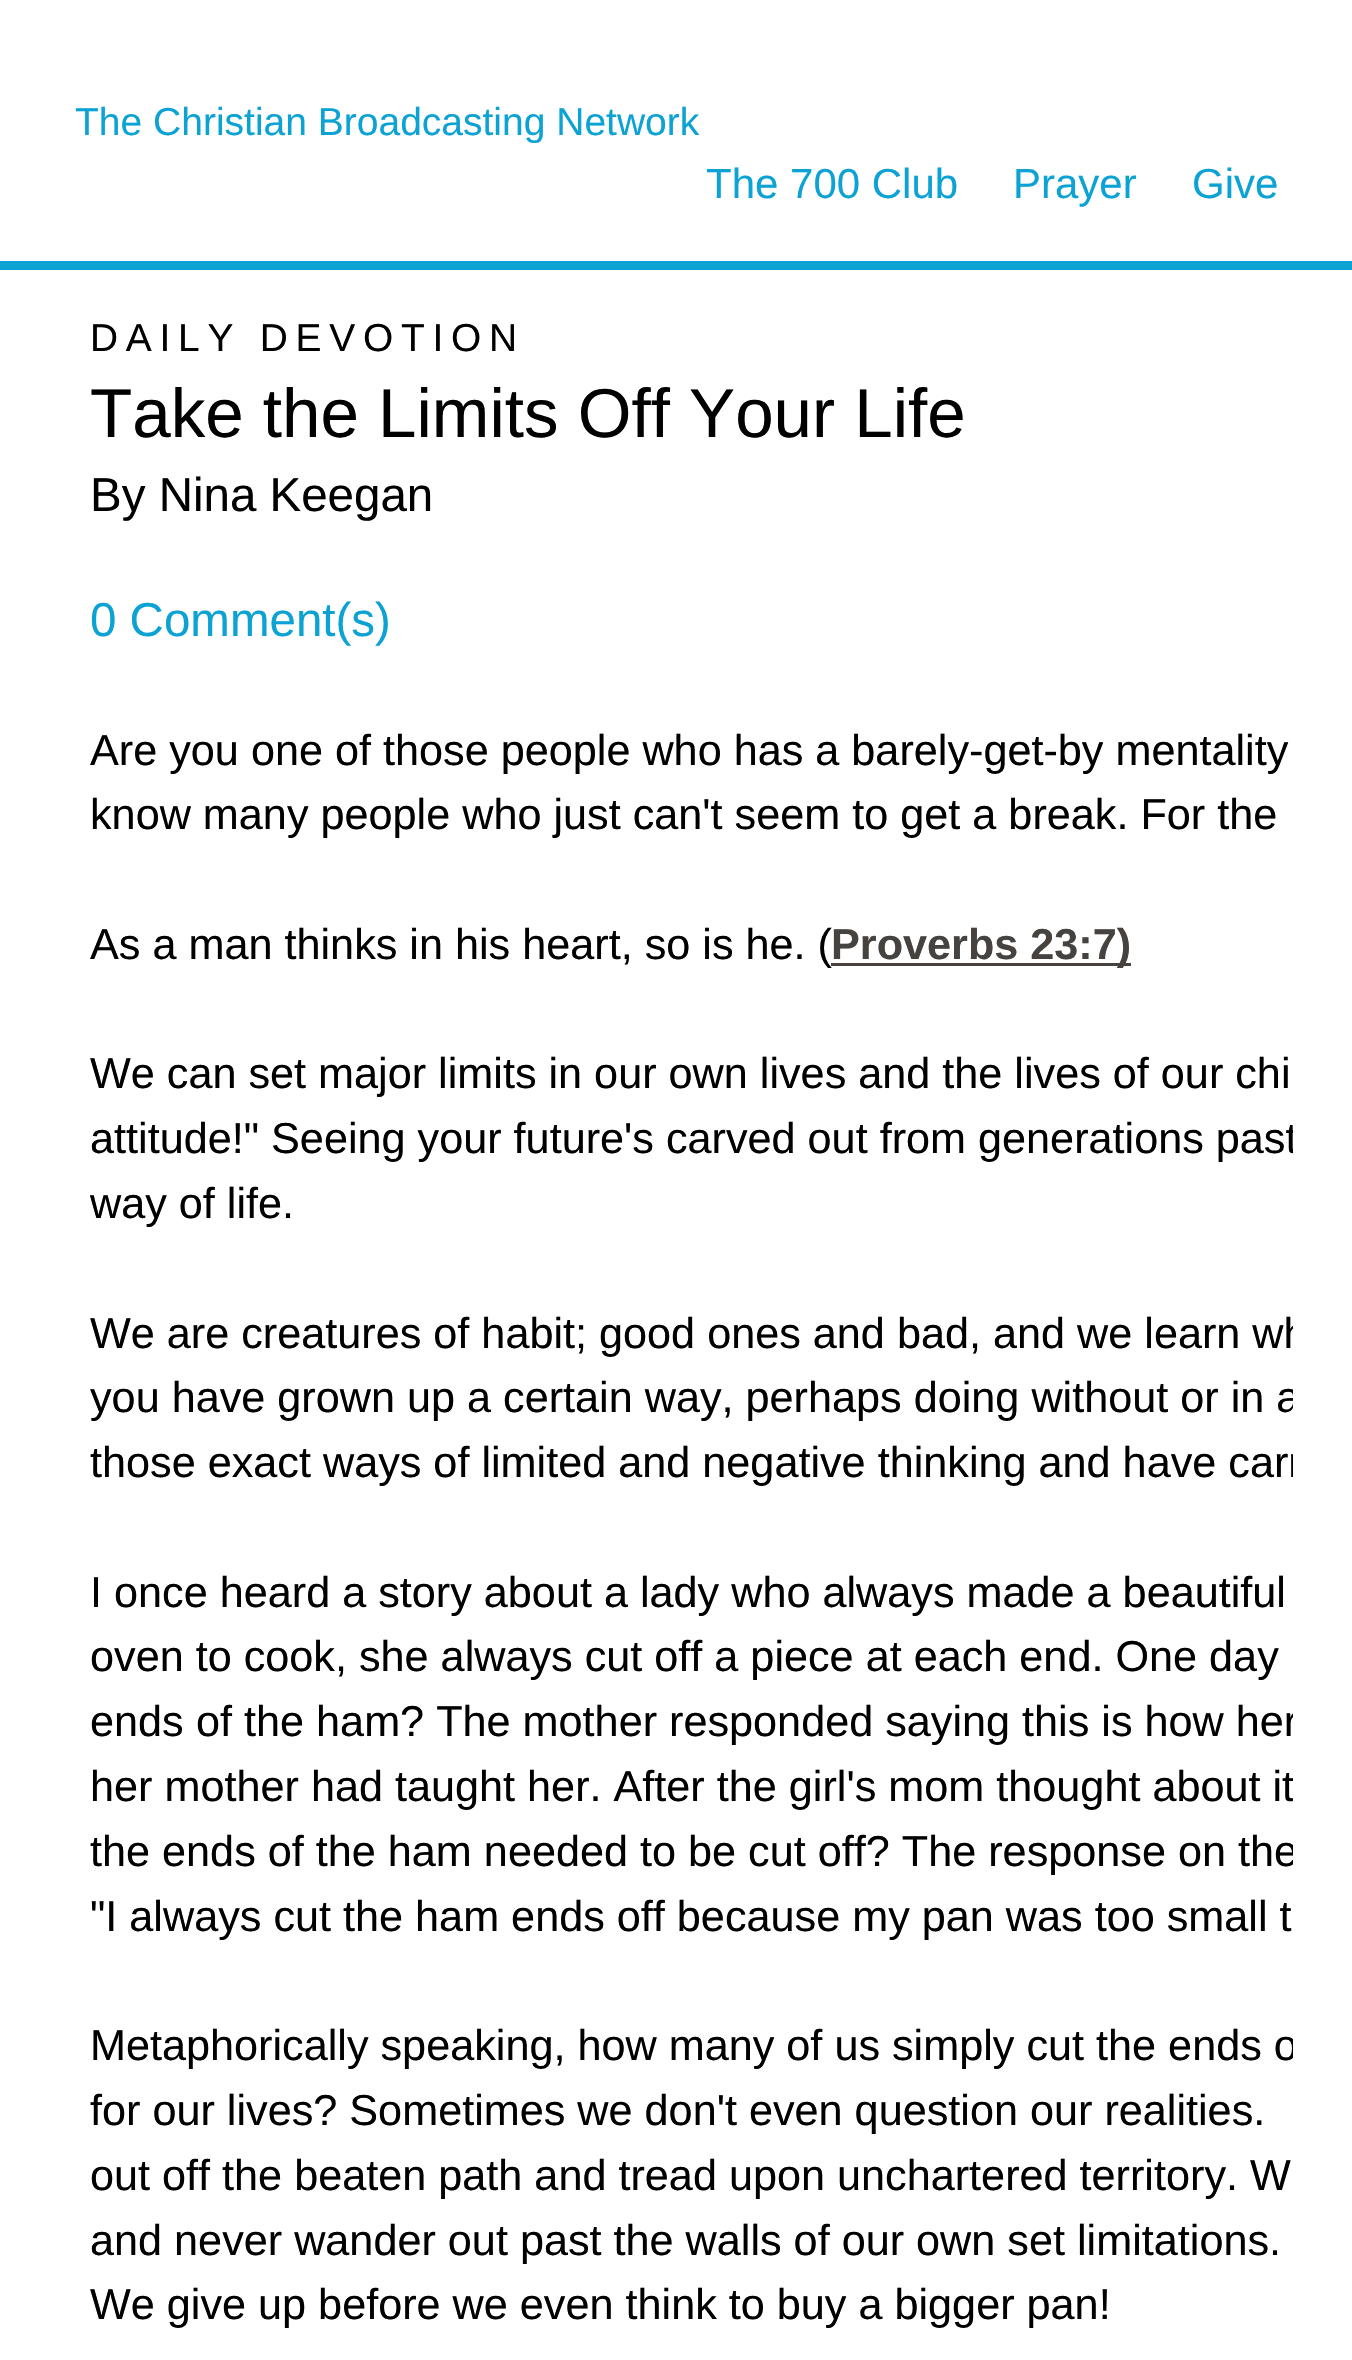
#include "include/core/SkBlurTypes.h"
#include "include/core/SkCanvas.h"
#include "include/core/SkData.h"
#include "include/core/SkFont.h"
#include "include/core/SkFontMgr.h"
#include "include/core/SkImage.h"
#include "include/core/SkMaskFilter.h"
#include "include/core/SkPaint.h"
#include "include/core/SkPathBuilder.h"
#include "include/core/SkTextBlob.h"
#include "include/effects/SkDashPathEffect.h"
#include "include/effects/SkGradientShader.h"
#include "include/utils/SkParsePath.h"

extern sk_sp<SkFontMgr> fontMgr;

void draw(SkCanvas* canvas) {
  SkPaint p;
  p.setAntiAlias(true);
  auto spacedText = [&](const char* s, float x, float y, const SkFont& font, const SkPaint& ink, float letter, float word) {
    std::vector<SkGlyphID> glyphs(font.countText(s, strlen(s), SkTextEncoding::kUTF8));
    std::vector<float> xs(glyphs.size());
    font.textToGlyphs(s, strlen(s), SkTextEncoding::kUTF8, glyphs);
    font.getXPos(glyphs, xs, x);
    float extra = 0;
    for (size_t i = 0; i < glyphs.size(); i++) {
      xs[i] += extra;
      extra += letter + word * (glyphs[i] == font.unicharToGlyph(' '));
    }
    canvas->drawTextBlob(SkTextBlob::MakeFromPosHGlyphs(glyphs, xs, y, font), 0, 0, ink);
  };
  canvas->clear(SK_ColorWHITE);
  p.setColor(SkColorSetRGB(12, 163, 212));
  canvas->drawRect(SkRect::MakeLTRB(0, 261, 1352, 270), p);
  SkFont font1(fontMgr->matchFamilyStyle("Liberation Sans", SkFontStyle::Normal()), 39);
  font1.setSubpixel(true);
  canvas->drawString("The Christian Broadcasting Network", 75, 135, font1, p);
  SkFont font2(fontMgr->matchFamilyStyle("Liberation Sans", SkFontStyle::Normal()), 42);
  font2.setSubpixel(true);
  canvas->drawString("The 700 Club", 706, 198, font2, p);
  canvas->drawString("Prayer", 1013, 198, font2, p);
  canvas->drawString("Give", 1192, 198, font2, p);
  SkFont font3(fontMgr->matchFamilyStyle("Liberation Sans", SkFontStyle::Normal()), 38.9f);
  font3.setSubpixel(true);
  p.setColor(SK_ColorBLACK);
  spacedText("DAILY DEVOTION", 90, 351, font3, p, 7.75f, 0);
  SkFont font4(fontMgr->matchFamilyStyle("Liberation Sans", SkFontStyle::Normal()), 69.1f);
  font4.setSubpixel(true);
  canvas->drawString("Take the Limits Off Your Life", 90, 437, font4, p);
  SkFont font5(fontMgr->matchFamilyStyle("Liberation Sans", SkFontStyle::Normal()), 47.5f);
  font5.setSubpixel(true);
  canvas->drawString("By Nina Keegan", 90, 511, font5, p);
  p.setColor(SkColorSetRGB(12, 163, 212));
  canvas->drawString("0 Comment(s)", 90, 636, font5, p);
  SkFont font6(fontMgr->matchFamilyStyle("Liberation Sans", SkFontStyle::Normal()), 43.2f);
  font6.setSubpixel(true);
  p.setColor(SK_ColorBLACK);
  canvas->drawString("Are you one of those people who has a barely-get-by mentality", 90, 765, font6, p);
  canvas->drawString("know many people who just can't seem to get a break. For the", 90, 829, font6, p);
  canvas->drawString("As a man thinks in his heart, so is he. (", 90, 959, font6, p);
  p.setColor(SkColorSetRGB(69, 66, 64));
  canvas->drawRect(SkRect::MakeLTRB(831, 963, 1131, 966), p);
  SkFont font7(fontMgr->matchFamilyStyle("Liberation Sans", SkFontStyle::Bold()), 43.2f);
  font7.setSubpixel(true);
  canvas->drawString("Proverbs 23:7)", 831, 959, font7, p);
  p.setColor(SK_ColorBLACK);
  canvas->drawString("We can set major limits in our own lives and the lives of our chi", 90, 1088, font6, p);
  canvas->save();
  canvas->clipRect(SkRect::MakeLTRB(60, 240, 1293, 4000));
  canvas->drawString("attitude!\" Seeing your future's carved out from generations past", 90, 1153, font6, p);
  canvas->restore();
  canvas->drawString("way of life.", 90, 1218, font6, p);
  canvas->save();
  canvas->clipRect(SkRect::MakeLTRB(60, 240, 1293, 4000));
  canvas->drawString("We are creatures of habit; good ones and bad, and we learn wh", 90, 1348, font6, p);
  canvas->drawString("you have grown up a certain way, perhaps doing without or in a", 90, 1412, font6, p);
  canvas->drawString("those exact ways of limited and negative thinking and have carr", 90, 1477, font6, p);
  canvas->restore();
  canvas->drawString("I once heard a story about a lady who always made a beautiful", 90, 1607, font6, p);
  canvas->drawString("oven to cook, she always cut off a piece at each end. One day", 90, 1671, font6, p);
  canvas->drawString("ends", 90, 1736, font6, p);
  canvas->save();
  canvas->clipRect(SkRect::MakeLTRB(60, 240, 1293, 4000));
  canvas->drawString("of the ham? The mother responded saying this is how her", 196, 1736, font6, p);
  canvas->drawString("her mother had taught her. After the girl's mom thought about it", 90, 1801, font6, p);
  canvas->drawString("the ends of the ham needed to be cut off? The response on the", 90, 1866, font6, p);
  canvas->restore();
  canvas->drawString("\"I always cut the ham ends off because my pan was too small t", 90, 1931, font6, p);
  canvas->save();
  canvas->clipRect(SkRect::MakeLTRB(60, 240, 1293, 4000));
  canvas->drawString("Metaphorically speaking, how many of us simply cut the ends o", 90, 2060, font6, p);
  canvas->restore();
  canvas->drawString("for our lives? Sometimes we don't even question our realities.", 90, 2125, font6, p);
  canvas->drawString("out off the beaten path and tread upon unchartered territory. W", 90, 2190, font6, p);
  canvas->drawString("and never wander out past the walls of our own set limitations.", 90, 2255, font6, p);
  canvas->drawString("We give up before we even think to buy a bigger pan!", 90, 2319, font6, p);
}
